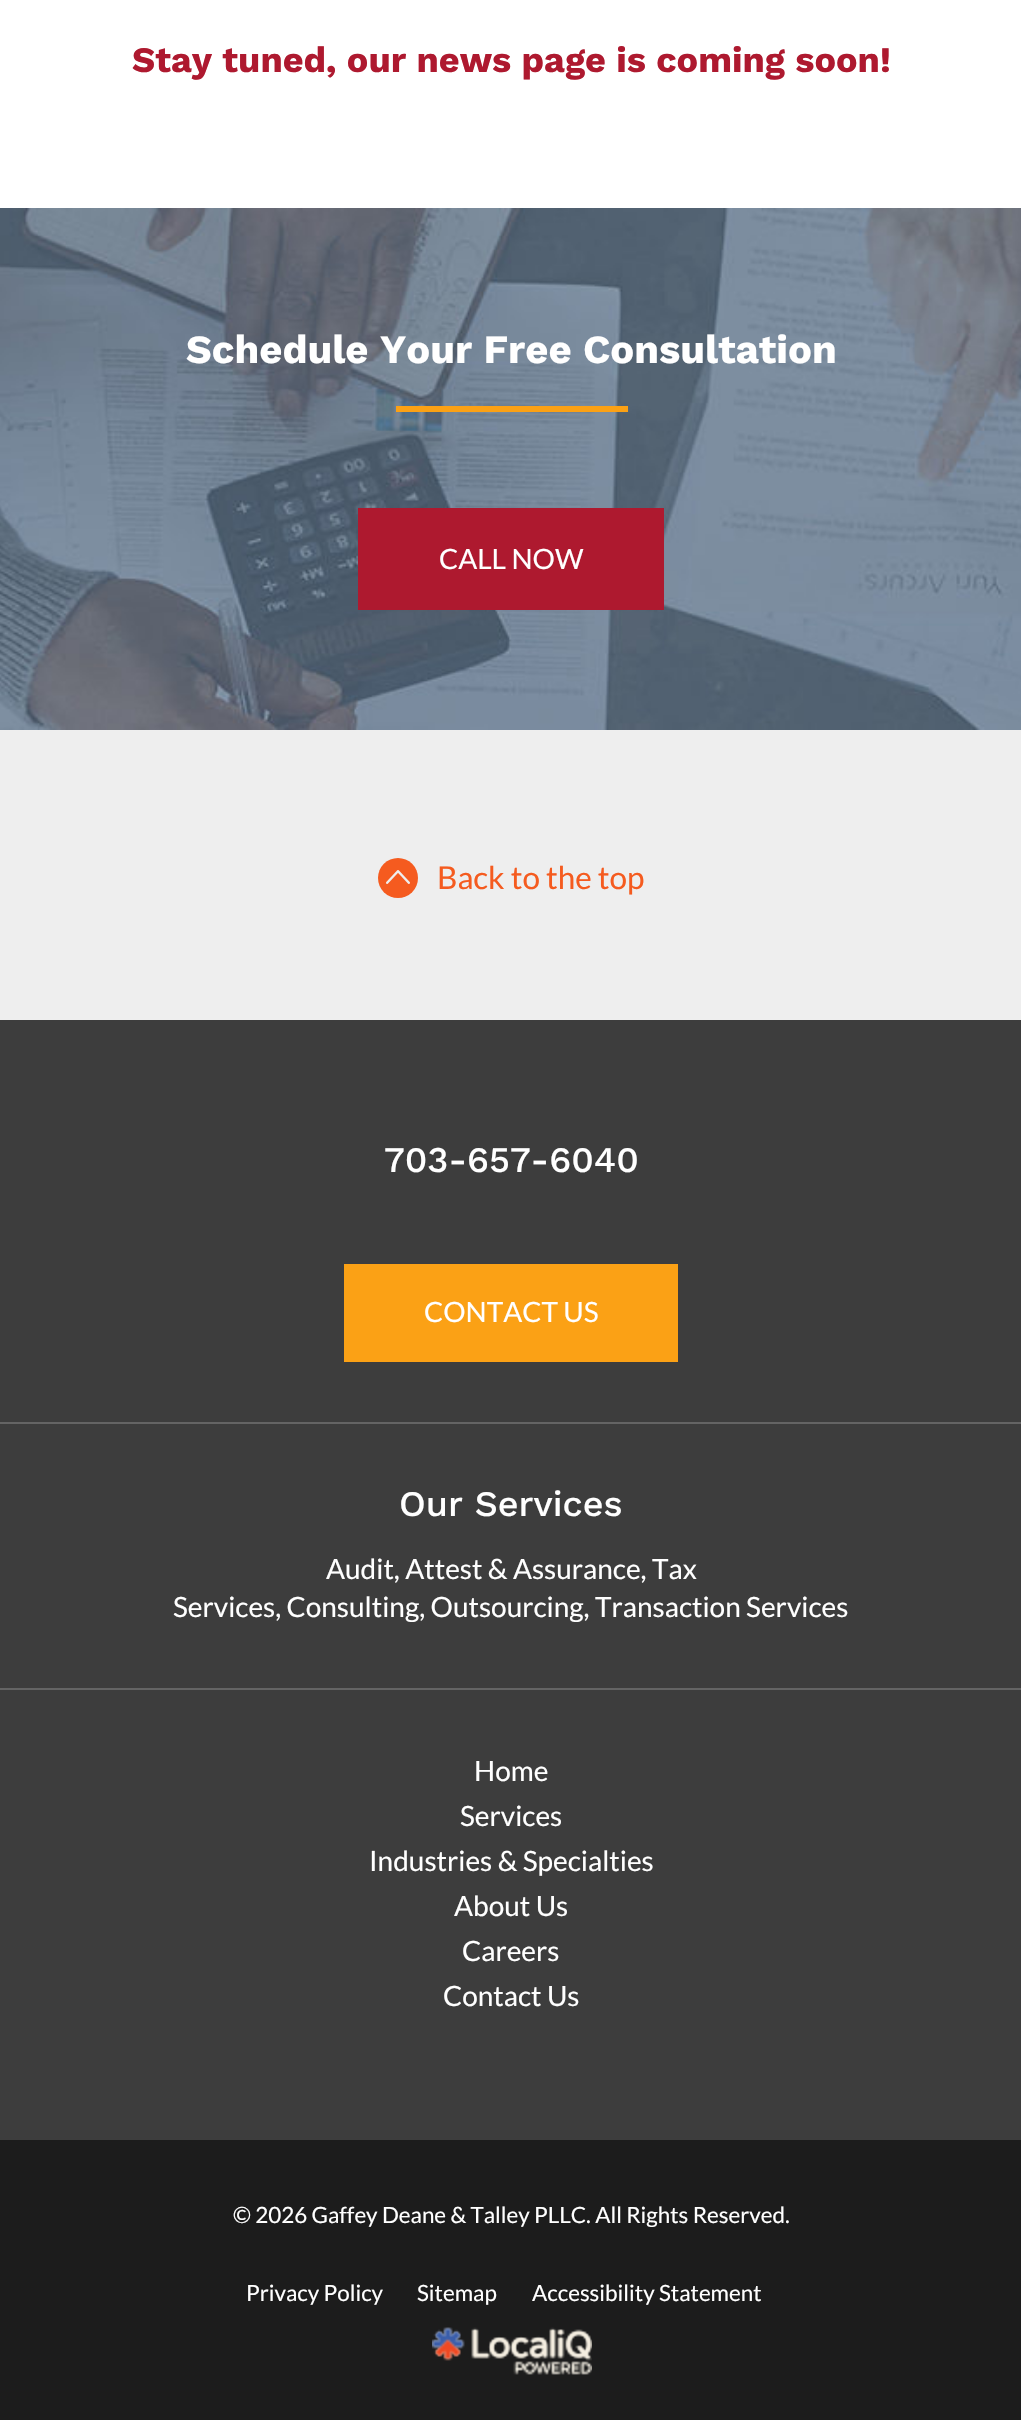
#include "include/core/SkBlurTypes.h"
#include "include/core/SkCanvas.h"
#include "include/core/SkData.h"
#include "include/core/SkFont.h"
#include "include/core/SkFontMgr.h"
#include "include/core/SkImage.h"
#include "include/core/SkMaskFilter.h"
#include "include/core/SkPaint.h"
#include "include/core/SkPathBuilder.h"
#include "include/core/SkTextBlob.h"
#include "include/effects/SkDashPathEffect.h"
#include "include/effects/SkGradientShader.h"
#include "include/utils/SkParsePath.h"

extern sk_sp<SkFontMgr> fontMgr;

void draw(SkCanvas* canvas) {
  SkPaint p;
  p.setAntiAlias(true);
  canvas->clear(SK_ColorWHITE);
  canvas->drawImageRect(SkImages::DeferredFromEncodedData(SkData::MakeFromFileName("images/1.png")), SkRect::MakeLTRB(0, 208, 1021, 730), SkSamplingOptions());
  p.setColor(SkColorSetRGB(251, 161, 21));
  canvas->drawRect(SkRect::MakeLTRB(396, 406, 628, 412), p);
  p.setColor(SkColorSetRGB(174, 25, 47));
  canvas->drawRect(SkRect::MakeLTRB(358, 508, 664, 610), p);
  p.setColor(SkColorSetRGB(238, 238, 238));
  canvas->drawRect(SkRect::MakeLTRB(0, 730, 1021, 1020), p);
  p.setColor(SkColorSetRGB(245, 91, 31));
  canvas->drawCircle(398, 878, 20, p);
  canvas->drawImageRect(SkImages::DeferredFromEncodedData(SkData::MakeFromFileName("images/2.png")), SkRect::MakeLTRB(386, 870, 410, 884), SkSamplingOptions());
  p.setColor(SkColorSetRGB(61, 61, 61));
  canvas->drawRect(SkRect::MakeLTRB(0, 1020, 1021, 2140), p);
  p.setColor(SkColorSetRGB(251, 161, 21));
  canvas->drawRect(SkRect::MakeLTRB(344, 1264, 678, 1362), p);
  p.setColor(SkColorSetRGB(100, 100, 100));
  canvas->drawRect(SkRect::MakeLTRB(0, 1422, 1021, 1424), p);
  canvas->drawRect(SkRect::MakeLTRB(0, 1688, 1021, 1690), p);
  p.setColor(SkColorSetRGB(28, 28, 28));
  canvas->drawRect(SkRect::MakeLTRB(0, 2140, 1021, 2420), p);
  canvas->drawImageRect(SkImages::DeferredFromEncodedData(SkData::MakeFromFileName("images/3.png")), SkRect::MakeLTRB(432, 2327, 592, 2375), SkSamplingOptions());
  SkFont font1(fontMgr->matchFamilyStyle("Work Sans", SkFontStyle::Bold()), 36);
  font1.setSubpixel(true);
  p.setColor(SkColorSetRGB(174, 25, 47));
  canvas->drawString("Stay tuned, our news page is coming soon!", 132, 72, font1, p);
  SkFont font2(fontMgr->matchFamilyStyle("Work Sans", SkFontStyle::Bold()), 40);
  font2.setSubpixel(true);
  p.setColor(SK_ColorWHITE);
  canvas->drawString("Schedule Your Free Consultation", 186, 363, font2, p);
  SkFont font3(fontMgr->matchFamilyStyle("Lato", SkFontStyle::Normal()), 28);
  font3.setSubpixel(true);
  canvas->drawString("CALL NOW", 439, 569, font3, p);
  SkFont font4(fontMgr->matchFamilyStyle("Lato", SkFontStyle::Normal()), 31.5f);
  font4.setSubpixel(true);
  p.setColor(SkColorSetRGB(245, 91, 31));
  canvas->drawString("Back to the top", 437, 889, font4, p);
  SkFont font5(fontMgr->matchFamilyStyle("Work Sans", SkFontStyle(500, SkFontStyle::kNormal_Width, SkFontStyle::kUpright_Slant)), 36);
  font5.setSubpixel(true);
  p.setColor(SK_ColorWHITE);
  canvas->drawString("703-657-6040", 384, 1172, font5, p);
  canvas->drawString("CONTACT US", 424, 1322, font3, p);
  canvas->drawString("Our Services", 399, 1516, font5, p);
  canvas->drawString("Audit, Attest & Assurance, Tax", 326, 1579, font3, p);
  canvas->drawString("Services, Consulting, Outsourcing, Transaction Services", 173, 1617, font3, p);
  canvas->drawString("Home", 474, 1781, font3, p);
  canvas->drawString("Services", 460, 1826, font3, p);
  canvas->drawString("Industries & Specialties", 369, 1871, font3, p);
  canvas->drawString("About Us", 454, 1916, font3, p);
  canvas->drawString("Careers", 462, 1961, font3, p);
  canvas->drawString("Contact Us", 443, 2006, font3, p);
  SkFont font6(fontMgr->matchFamilyStyle("Lato", SkFontStyle::Normal()), 22.4f);
  font6.setSubpixel(true);
  canvas->drawString("© 2026 Gaffey Deane & Talley PLLC. All Rights Reserved.", 233, 2223, font6, p);
  canvas->drawString("Privacy Policy", 246, 2301, font6, p);
  canvas->drawString("Sitemap", 417, 2301, font6, p);
  canvas->drawString("Accessibility Statement", 532, 2301, font6, p);
}
